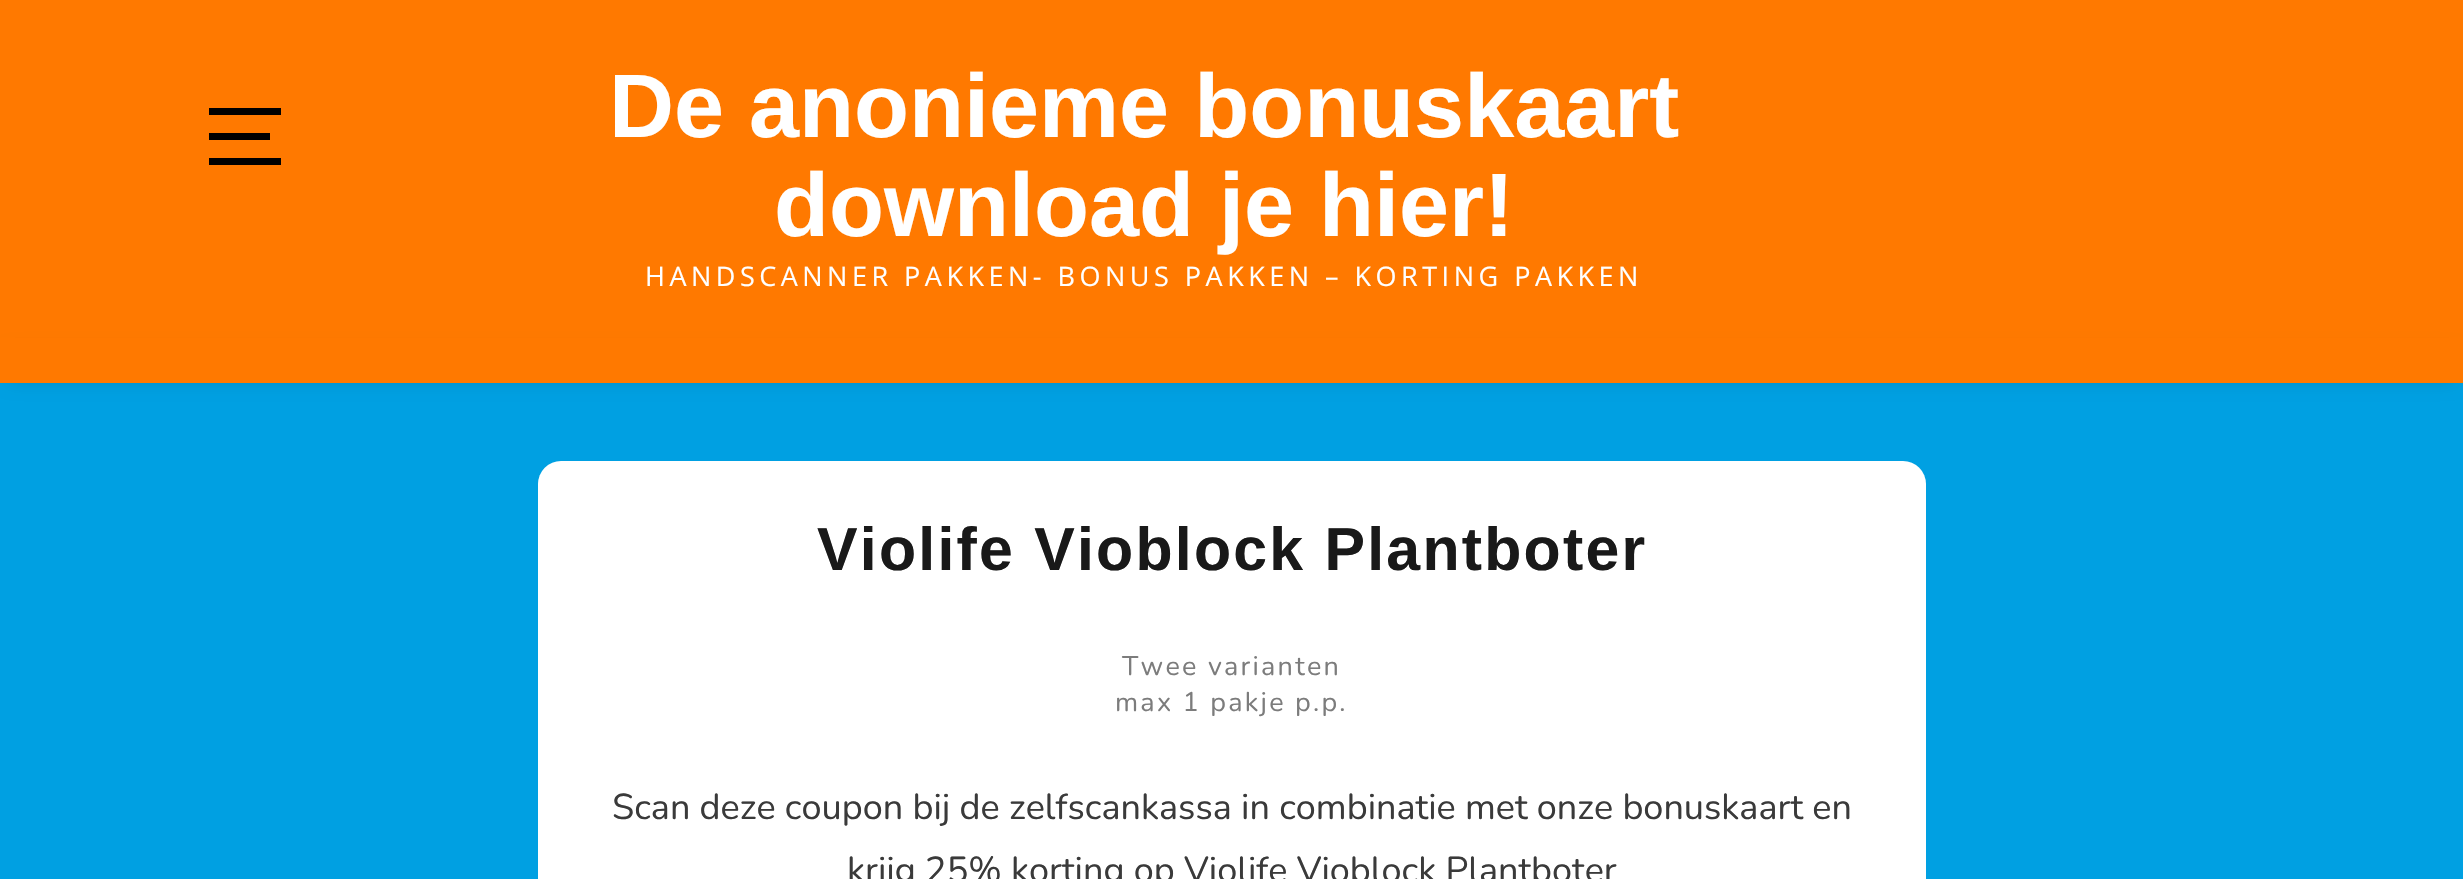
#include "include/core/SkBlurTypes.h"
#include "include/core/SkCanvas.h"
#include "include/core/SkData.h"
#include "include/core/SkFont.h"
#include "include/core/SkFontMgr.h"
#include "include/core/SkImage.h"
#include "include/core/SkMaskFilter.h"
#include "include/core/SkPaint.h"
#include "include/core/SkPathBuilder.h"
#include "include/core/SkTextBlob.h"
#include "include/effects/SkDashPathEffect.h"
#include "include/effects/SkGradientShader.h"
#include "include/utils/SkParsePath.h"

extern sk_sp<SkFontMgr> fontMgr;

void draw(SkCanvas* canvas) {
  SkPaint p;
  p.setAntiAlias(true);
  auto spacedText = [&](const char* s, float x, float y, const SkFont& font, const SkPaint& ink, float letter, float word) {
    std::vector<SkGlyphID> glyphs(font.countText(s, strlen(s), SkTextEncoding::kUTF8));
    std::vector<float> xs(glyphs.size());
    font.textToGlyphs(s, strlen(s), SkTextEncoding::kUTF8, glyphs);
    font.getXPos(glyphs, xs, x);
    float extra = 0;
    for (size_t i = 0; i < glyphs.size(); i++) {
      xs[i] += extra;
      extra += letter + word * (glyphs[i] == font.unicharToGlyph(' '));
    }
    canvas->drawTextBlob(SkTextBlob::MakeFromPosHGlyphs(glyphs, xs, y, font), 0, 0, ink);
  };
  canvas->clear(SkColorSetRGB(0, 160, 226));
  p.setColor(SkColorSetRGB(255, 121, 0));
  canvas->drawRect(SkRect::MakeLTRB(0, 0, 2463, 338), p);
  p.setColor(SK_ColorBLACK);
  canvas->drawRect(SkRect::MakeLTRB(209, 133, 270, 140), p);
  canvas->drawRect(SkRect::MakeLTRB(209, 108, 281, 115), p);
  canvas->drawRect(SkRect::MakeLTRB(209, 158, 281, 165), p);
  p.setColor(SkColorSetARGB(38, 0, 0, 0));
  p.setMaskFilter(SkMaskFilter::MakeBlur(kNormal_SkBlurStyle, 9));
  canvas->drawRect(SkRect::MakeLTRB(9, 353, 2455, 380), p);
  p.setMaskFilter(nullptr);
  p.setColor(SkColorSetRGB(255, 121, 0));
  canvas->drawRect(SkRect::MakeLTRB(0, 338, 2463, 383), p);
  p.setColor(SK_ColorWHITE);
  canvas->drawRoundRect(SkRect::MakeLTRB(538, 461, 1926, 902), 23, 23, p);
  SkFont font1(fontMgr->matchFamilyStyle("Liberation Sans", SkFontStyle::Bold()), 90);
  font1.setSubpixel(true);
  canvas->drawString("De anonieme bonuskaart", 609, 137, font1, p);
  canvas->drawString("download je hier!", 774, 236, font1, p);
  SkFont font2(fontMgr->matchFamilyStyle("Open Sans", SkFontStyle::Normal()), 27);
  font2.setSubpixel(true);
  spacedText("HANDSCANNER PAKKEN- BONUS PAKKEN – KORTING PAKKEN", 645, 286, font2, p, 4.5f, 0);
  SkFont font3(fontMgr->matchFamilyStyle("Liberation Sans", SkFontStyle::Bold()), 60.75f);
  font3.setSubpixel(true);
  p.setColor(SkColorSetRGB(25, 25, 25));
  spacedText("Violife Vioblock Plantboter", 817, 570, font3, p, 2.25f, 0);
  SkFont font4(fontMgr->matchFamilyStyle("Nunito", SkFontStyle::Normal()), 27);
  font4.setSubpixel(true);
  p.setColor(SkColorSetRGB(124, 124, 124));
  spacedText("Twee varianten", 1122, 675, font4, p, 2.25f, 0);
  spacedText("max 1 pakje p.p.", 1115, 711, font4, p, 2.25f, 0);
  SkFont font5(fontMgr->matchFamilyStyle("Nunito", SkFontStyle::Normal()), 36);
  font5.setSubpixel(true);
  p.setColor(SkColorSetRGB(58, 58, 58));
  canvas->drawString("Scan deze coupon bij de zelfscankassa in combinatie met onze bonuskaart en", 612, 819, font5, p);
  canvas->drawString("krijg 25% korting op Violife Vioblock Plantboter", 847, 882, font5, p);
}
